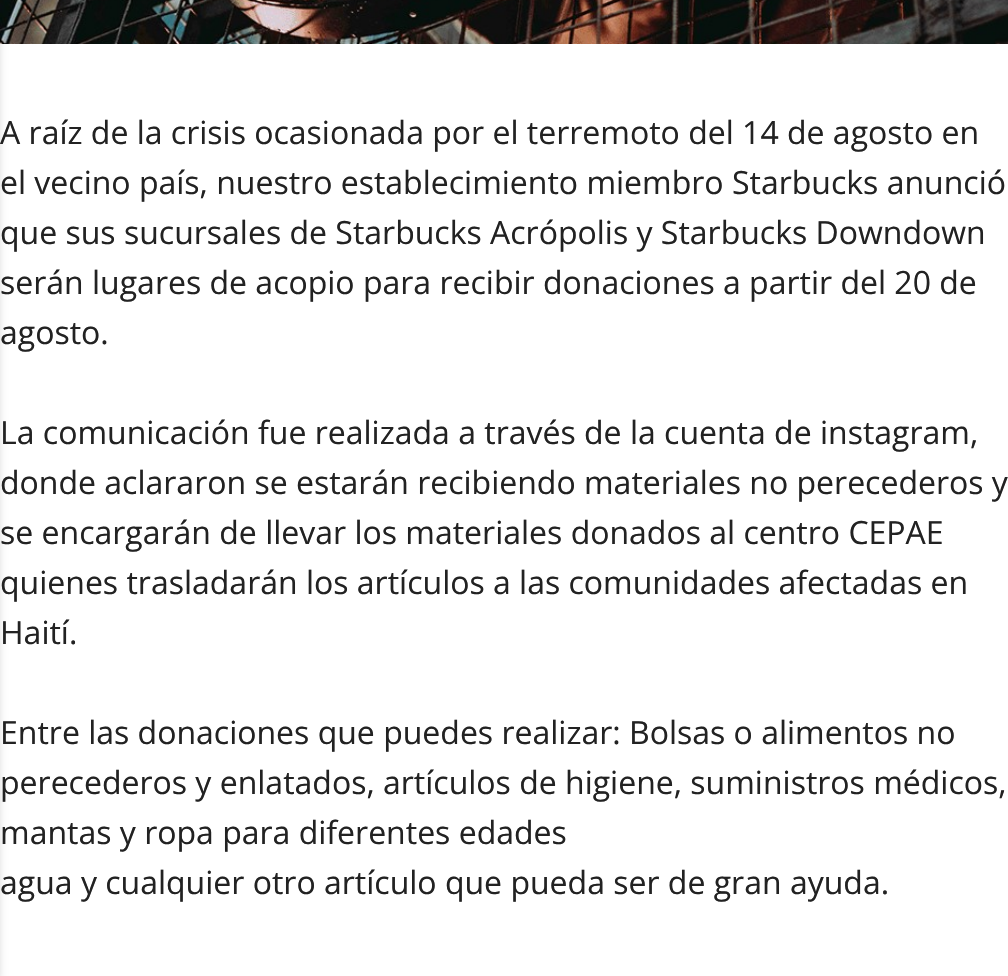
#include "include/core/SkBlurTypes.h"
#include "include/core/SkCanvas.h"
#include "include/core/SkData.h"
#include "include/core/SkFont.h"
#include "include/core/SkFontMgr.h"
#include "include/core/SkImage.h"
#include "include/core/SkMaskFilter.h"
#include "include/core/SkPaint.h"
#include "include/core/SkPathBuilder.h"
#include "include/core/SkTextBlob.h"
#include "include/effects/SkDashPathEffect.h"
#include "include/effects/SkGradientShader.h"
#include "include/utils/SkParsePath.h"

extern sk_sp<SkFontMgr> fontMgr;

void draw(SkCanvas* canvas) {
  SkPaint p;
  p.setAntiAlias(true);
  canvas->clear(SK_ColorWHITE);
  canvas->drawImageRect(SkImages::DeferredFromEncodedData(SkData::MakeFromFileName("images/1.png")), SkRect::MakeLTRB(0, 0, 1008, 44), SkSamplingOptions());
  p.setColor(SkColorSetARGB(51, 0, 0, 0));
  p.setMaskFilter(SkMaskFilter::MakeBlur(kNormal_SkBlurStyle, 5));
  canvas->drawRect(SkRect::MakeLTRB(-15, 6, -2, 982), p);
  p.setMaskFilter(nullptr);
  SkFont font1(fontMgr->matchFamilyStyle("Open Sans", SkFontStyle::Normal()), 32);
  font1.setSubpixel(true);
  p.setColor(SkColorSetRGB(34, 34, 34));
  canvas->drawString("A raíz de la crisis ocasionada por el terremoto del 14 de agosto en", 0, 144, font1, p);
  canvas->drawString("el vecino país, nuestro establecimiento miembro Starbucks anunció", 0, 194, font1, p);
  canvas->drawString("que sus sucursales de Starbucks Acrópolis y Starbucks Downdown", 0, 244, font1, p);
  canvas->drawString("serán lugares de acopio para recibir donaciones a partir del 20 de", 0, 294, font1, p);
  canvas->drawString("agosto.", 0, 344, font1, p);
  canvas->drawString("La comunicación fue realizada a través de la cuenta de instagram,", 0, 444, font1, p);
  canvas->drawString("donde aclararon se estarán recibiendo materiales no perecederos y", 0, 494, font1, p);
  canvas->drawString("se encargarán de llevar los materiales donados al centro CEPAE", 0, 544, font1, p);
  canvas->drawString("quienes trasladarán los artículos a las comunidades afectadas en", 0, 594, font1, p);
  canvas->drawString("Haití.", 0, 644, font1, p);
  canvas->drawString("Entre las donaciones que puedes realizar: Bolsas o alimentos no", 0, 744, font1, p);
  canvas->drawString("perecederos y enlatados, artículos de higiene, suministros médicos,", 0, 794, font1, p);
  canvas->drawString("mantas y ropa para diferentes edades", 0, 844, font1, p);
  canvas->drawString("agua y cualquier otro artículo que pueda ser de gran ayuda.", 0, 894, font1, p);
}
